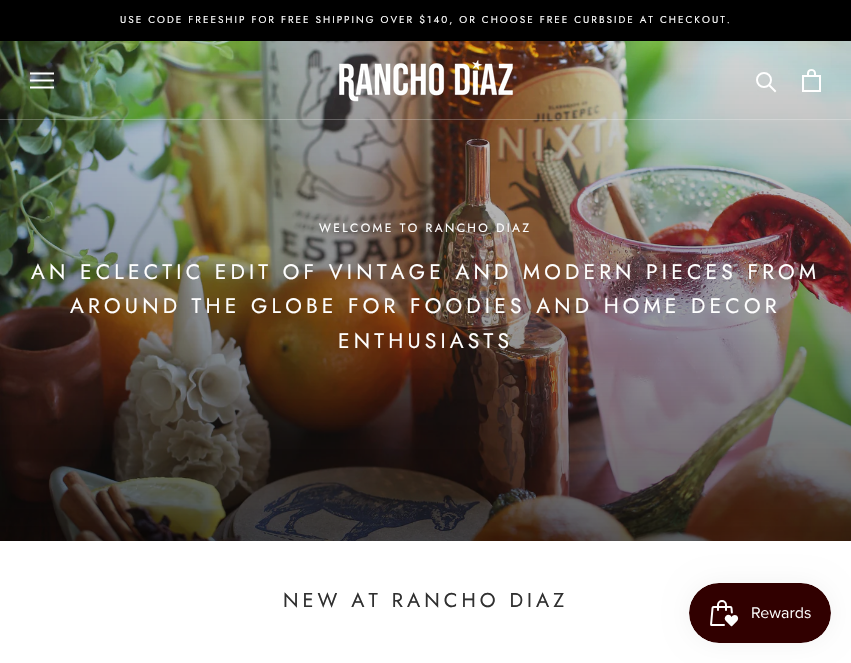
#include "include/core/SkBlurTypes.h"
#include "include/core/SkCanvas.h"
#include "include/core/SkData.h"
#include "include/core/SkFont.h"
#include "include/core/SkFontMgr.h"
#include "include/core/SkImage.h"
#include "include/core/SkMaskFilter.h"
#include "include/core/SkPaint.h"
#include "include/core/SkPathBuilder.h"
#include "include/core/SkTextBlob.h"
#include "include/effects/SkDashPathEffect.h"
#include "include/effects/SkGradientShader.h"
#include "include/utils/SkParsePath.h"

extern sk_sp<SkFontMgr> fontMgr;

void draw(SkCanvas* canvas) {
  SkPaint p;
  p.setAntiAlias(true);
  auto spacedText = [&](const char* s, float x, float y, const SkFont& font, const SkPaint& ink, float letter, float word) {
    std::vector<SkGlyphID> glyphs(font.countText(s, strlen(s), SkTextEncoding::kUTF8));
    std::vector<float> xs(glyphs.size());
    font.textToGlyphs(s, strlen(s), SkTextEncoding::kUTF8, glyphs);
    font.getXPos(glyphs, xs, x);
    float extra = 0;
    for (size_t i = 0; i < glyphs.size(); i++) {
      xs[i] += extra;
      extra += letter + word * (glyphs[i] == font.unicharToGlyph(' '));
    }
    canvas->drawTextBlob(SkTextBlob::MakeFromPosHGlyphs(glyphs, xs, y, font), 0, 0, ink);
  };
  canvas->clear(SK_ColorWHITE);
  p.setColor(SK_ColorBLACK);
  canvas->drawRect(SkRect::MakeLTRB(0, 0, 851, 41), p);
  canvas->drawImageRect(SkImages::DeferredFromEncodedData(SkData::MakeFromFileName("images/4.png")), SkRect::MakeLTRB(0, 41, 851, 541), SkSamplingOptions());
  p.setColor(SkColorSetARGB(64, 255, 255, 255));
  canvas->drawRect(SkRect::MakeLTRB(0, 119, 851, 120), p);
  canvas->drawImageRect(SkImages::DeferredFromEncodedData(SkData::MakeFromFileName("images/1.png")), SkRect::MakeLTRB(30, 72, 54, 89), SkSamplingOptions());
  canvas->drawImageRect(SkImages::DeferredFromEncodedData(SkData::MakeFromFileName("images/2.png")), SkRect::MakeLTRB(339, 60, 513, 102), SkSamplingOptions());
  p.setStyle(SkPaint::kStroke_Style);
  p.setStrokeWidth(2);
  p.setStrokeCap(SkPaint::kSquare_Cap);
  p.setColor(SK_ColorWHITE);
  canvas->drawPath(SkPathBuilder().moveTo(775, 91).lineTo(769.5f, 85.5f).detach(), p);
  p.setStrokeCap(SkPaint::kButt_Cap);
  canvas->drawCircle(764, 80, 7, p);
  canvas->drawImageRect(SkImages::DeferredFromEncodedData(SkData::MakeFromFileName("images/3.png")), SkRect::MakeLTRB(802, 69, 821, 92), SkSamplingOptions());
  p.setStyle(SkPaint::kFill_Style);
  p.setColor(SkColorSetARGB(13, 0, 0, 0));
  p.setMaskFilter(SkMaskFilter::MakeBlur(kNormal_SkBlurStyle, 12.5f));
  canvas->drawRoundRect(SkRect::MakeLTRB(689, 583, 831, 643), 30, 30, p);
  p.setMaskFilter(nullptr);
  canvas->drawImageRect(SkImages::DeferredFromEncodedData(SkData::MakeFromFileName("images/5.png")), SkRect::MakeLTRB(689, 583, 831, 643), SkSamplingOptions());
  SkFont font1(fontMgr->matchFamilyStyle("Jost", SkFontStyle::Normal()), 10);
  font1.setSubpixel(true);
  p.setColor(SK_ColorWHITE);
  spacedText("USE CODE FREESHIP FOR FREE SHIPPING OVER $140, OR CHOOSE FREE CURBSIDE AT CHECKOUT.", 120, 23, font1, p, 2, 0);
  SkFont font2(fontMgr->matchFamilyStyle("Jost", SkFontStyle::Normal()), 12);
  font2.setSubpixel(true);
  spacedText("WELCOME TO RANCHO DIAZ", 319, 232, font2, p, 2.4f, 0);
  SkFont font3(fontMgr->matchFamilyStyle("Jost", SkFontStyle::Normal()), 21);
  font3.setSubpixel(true);
  spacedText("AN ECLECTIC EDIT OF VINTAGE AND MODERN PIECES FROM", 31, 279, font3, p, 4.2f, 0);
  spacedText("AROUND THE GLOBE FOR FOODIES AND HOME DECOR", 70, 313, font3, p, 4.2f, 0);
  spacedText("ENTHUSIASTS", 338, 348, font3, p, 4.2f, 0);
  SkFont font4(fontMgr->matchFamilyStyle("Jost", SkFontStyle::Normal()), 20);
  font4.setSubpixel(true);
  p.setColor(SkColorSetRGB(48, 48, 48));
  spacedText("NEW AT RANCHO DIAZ", 283, 607, font4, p, 4, 0);
}
